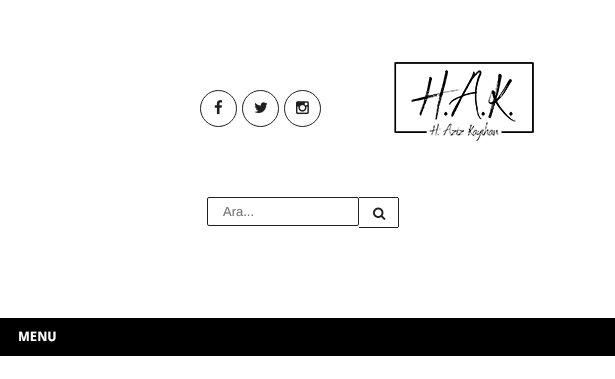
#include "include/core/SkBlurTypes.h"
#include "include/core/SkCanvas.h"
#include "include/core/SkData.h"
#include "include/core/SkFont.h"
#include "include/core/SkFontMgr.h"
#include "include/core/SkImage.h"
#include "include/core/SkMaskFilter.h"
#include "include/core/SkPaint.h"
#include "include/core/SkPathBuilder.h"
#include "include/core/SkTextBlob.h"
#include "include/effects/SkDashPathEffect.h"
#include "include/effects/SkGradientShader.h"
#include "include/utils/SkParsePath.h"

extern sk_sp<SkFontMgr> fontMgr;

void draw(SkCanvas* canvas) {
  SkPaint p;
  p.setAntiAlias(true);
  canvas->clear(SK_ColorWHITE);
  p.setStyle(SkPaint::kStroke_Style);
  p.setStrokeWidth(1);
  p.setColor(SkColorSetRGB(32, 32, 32));
  canvas->drawCircle(218.5f, 108.5f, 18, p);
  canvas->drawImageRect(SkImages::DeferredFromEncodedData(SkData::MakeFromFileName("images/1.png")), SkRect::MakeLTRB(214, 100, 223, 115), SkSamplingOptions());
  canvas->drawCircle(260.5f, 108.5f, 18, p);
  canvas->drawImageRect(SkImages::DeferredFromEncodedData(SkData::MakeFromFileName("images/2.png")), SkRect::MakeLTRB(254, 102, 268, 113), SkSamplingOptions());
  canvas->drawCircle(302.5f, 108.5f, 18, p);
  canvas->drawImageRect(SkImages::DeferredFromEncodedData(SkData::MakeFromFileName("images/3.png")), SkRect::MakeLTRB(296, 101, 309, 115), SkSamplingOptions());
  canvas->drawImageRect(SkImages::DeferredFromEncodedData(SkData::MakeFromFileName("images/4.png")), SkRect::MakeLTRB(394, 62, 534, 141), SkSamplingOptions());
  canvas->drawRoundRect(SkRect::MakeLTRB(207.5f, 197.5f, 358.5f, 225.5f), 1.5f, 1.5f, p);
  p.setStyle(SkPaint::kFill_Style);
  canvas->drawRect(SkRect::MakeLTRB(359, 197, 398, 198), p);
  canvas->drawRect(SkRect::MakeLTRB(398, 198, 399, 227), p);
  canvas->drawRect(SkRect::MakeLTRB(359, 227, 398, 228), p);
  canvas->drawImageRect(SkImages::DeferredFromEncodedData(SkData::MakeFromFileName("images/5.png")), SkRect::MakeLTRB(373, 207, 386, 220), SkSamplingOptions());
  p.setColor(SK_ColorBLACK);
  canvas->drawRect(SkRect::MakeLTRB(0, 318, 615, 356), p);
  SkFont font1(fontMgr->matchFamilyStyle("Liberation Sans", SkFontStyle::Normal()), 13);
  font1.setSubpixel(true);
  p.setColor(SkColorSetRGB(117, 117, 117));
  canvas->drawString("Ara...", 223, 216, font1, p);
  SkFont font2(fontMgr->matchFamilyStyle("Droid Sans", SkFontStyle::Bold()), 13);
  font2.setSubpixel(true);
  p.setColor(SK_ColorWHITE);
  canvas->drawString("MENU", 18, 341, font2, p);
}
